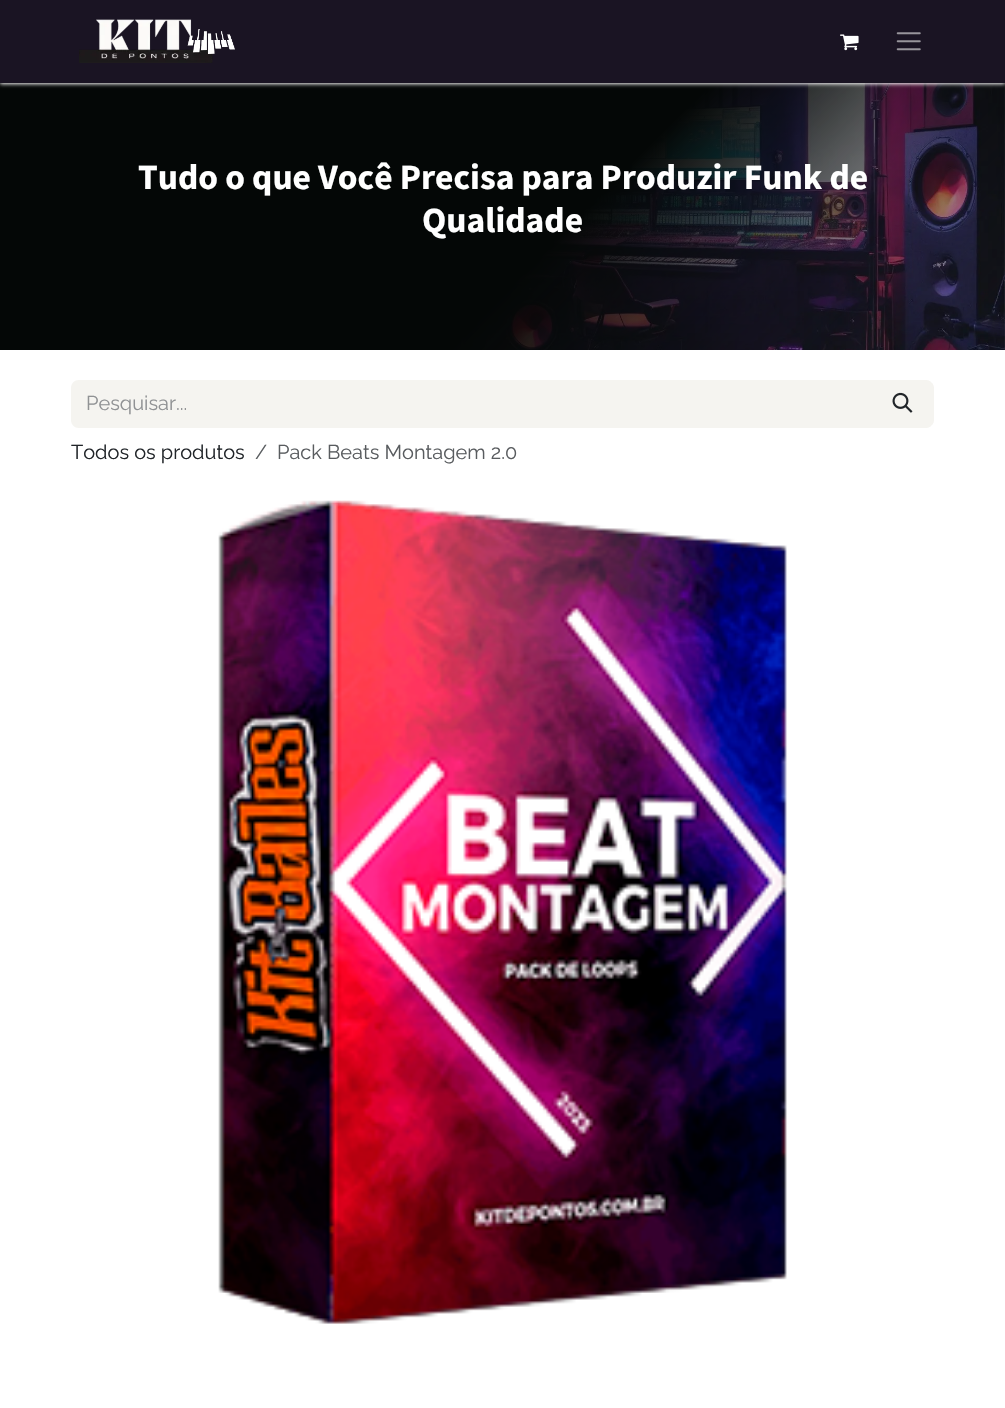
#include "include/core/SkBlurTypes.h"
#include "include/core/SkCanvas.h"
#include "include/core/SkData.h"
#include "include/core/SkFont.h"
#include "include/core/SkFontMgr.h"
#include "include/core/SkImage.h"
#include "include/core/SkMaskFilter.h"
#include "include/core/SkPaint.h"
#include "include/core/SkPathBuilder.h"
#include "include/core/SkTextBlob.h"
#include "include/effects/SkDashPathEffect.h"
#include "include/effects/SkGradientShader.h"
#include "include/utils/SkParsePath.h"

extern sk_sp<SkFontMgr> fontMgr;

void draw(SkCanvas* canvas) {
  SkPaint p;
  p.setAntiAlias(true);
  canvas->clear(SK_ColorWHITE);
  canvas->drawImageRect(SkImages::DeferredFromEncodedData(SkData::MakeFromFileName("images/4.png")), SkRect::MakeLTRB(0, 83, 1005, 350), SkSamplingOptions());
  p.setColor(SK_ColorWHITE);
  p.setMaskFilter(SkMaskFilter::MakeBlur(kNormal_SkBlurStyle, 2));
  canvas->drawRect(SkRect::MakeLTRB(0, 1, 1005, 84), p);
  p.setMaskFilter(nullptr);
  p.setColor(SkColorSetRGB(26, 20, 35));
  canvas->drawRect(SkRect::MakeLTRB(0, 0, 1005, 83), p);
  canvas->drawImageRect(SkImages::DeferredFromEncodedData(SkData::MakeFromFileName("images/1.png")), SkRect::MakeLTRB(79, 19, 235, 63), SkSamplingOptions());
  canvas->drawImageRect(SkImages::DeferredFromEncodedData(SkData::MakeFromFileName("images/2.png")), SkRect::MakeLTRB(840, 34, 859, 51), SkSamplingOptions());
  canvas->drawImageRect(SkImages::DeferredFromEncodedData(SkData::MakeFromFileName("images/3.png")), SkRect::MakeLTRB(896, 32, 921, 51), SkSamplingOptions());
  p.setColor(SkColorSetRGB(245, 244, 240));
  canvas->drawPath(SkPathBuilder().moveTo(79, 380).lineTo(873, 380).lineTo(873, 428).lineTo(79, 428).cubicTo(74.5f, 428, 71, 424.5f, 71, 420).lineTo(71, 388).cubicTo(71, 383.5f, 74.5f, 380, 79, 380).close().detach(), p);
  canvas->drawPath(SkPathBuilder().moveTo(871.5f, 380.5f).lineTo(926, 380.5f).cubicTo(930, 380.5f, 933.5f, 384, 933.5f, 388).lineTo(933.5f, 420).cubicTo(933.5f, 424, 930, 427.5f, 926, 427.5f).lineTo(871.5f, 427.5f).close().detach(), p);
  p.setStyle(SkPaint::kStroke_Style);
  p.setStrokeWidth(1);
  canvas->drawPath(SkPathBuilder().moveTo(871.5f, 380.5f).lineTo(926, 380.5f).cubicTo(930, 380.5f, 933.5f, 384, 933.5f, 388).lineTo(933.5f, 420).cubicTo(933.5f, 424, 930, 427.5f, 926, 427.5f).lineTo(871.5f, 427.5f).close().detach(), p);
  canvas->drawImageRect(SkImages::DeferredFromEncodedData(SkData::MakeFromFileName("images/5.png")), SkRect::MakeLTRB(892, 392, 913, 413), SkSamplingOptions());
  canvas->drawImageRect(SkImages::DeferredFromEncodedData(SkData::MakeFromFileName("images/6.png")), SkRect::MakeLTRB(218, 500, 787, 1324), SkSamplingOptions());
  SkFont font1(fontMgr->matchFamilyStyle("Source Sans Pro", SkFontStyle::Bold()), 35.55f);
  font1.setSubpixel(true);
  p.setStyle(SkPaint::kFill_Style);
  p.setColor(SK_ColorWHITE);
  canvas->drawString("Tudo o que Você Precisa para Produzir Funk de", 138, 189, font1, p);
  canvas->drawString("Qualidade", 422, 232, font1, p);
  SkFont font2(fontMgr->matchFamilyStyle("Raleway", SkFontStyle::Normal()), 20);
  font2.setSubpixel(true);
  p.setColor(SkColorSetRGB(144, 146, 148));
  canvas->drawString("Pesquisar...", 86, 410, font2, p);
  p.setColor(SkColorSetRGB(33, 37, 41));
  canvas->drawString("Todos os produtos", 71, 459, font2, p);
  p.setColor(SkColorSetRGB(89, 92, 95));
  canvas->drawString("/", 255, 459, font2, p);
  canvas->drawString("Pack Beats Montagem 2.0", 277, 459, font2, p);
}
